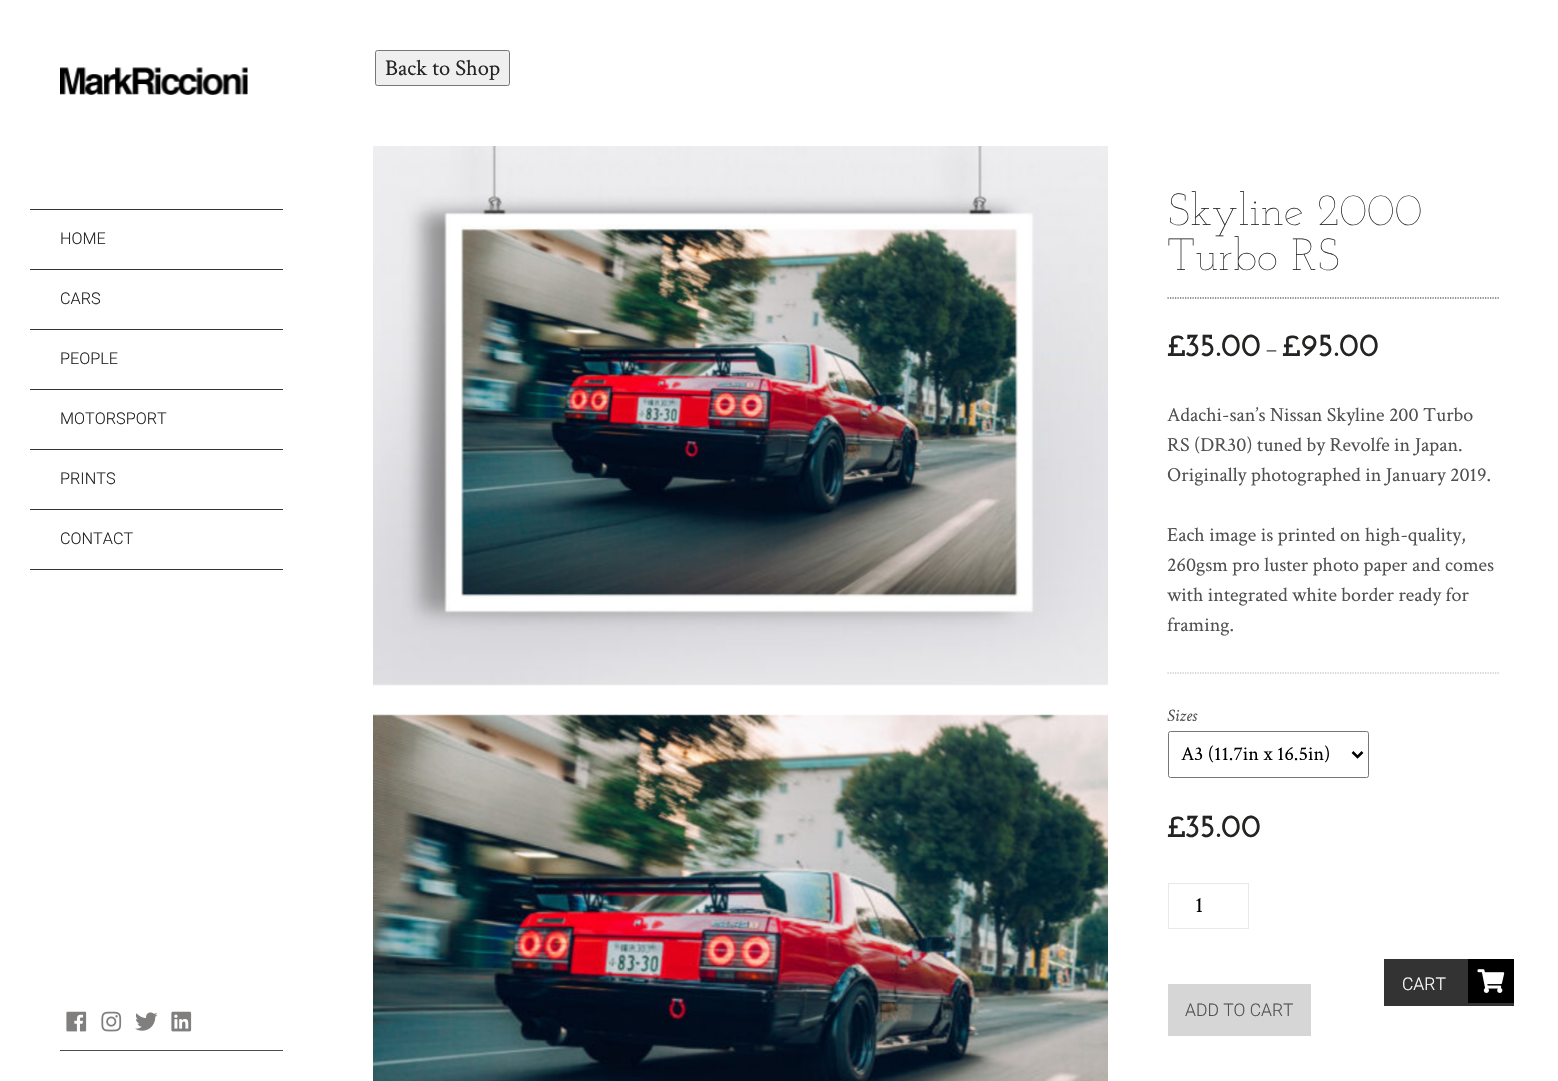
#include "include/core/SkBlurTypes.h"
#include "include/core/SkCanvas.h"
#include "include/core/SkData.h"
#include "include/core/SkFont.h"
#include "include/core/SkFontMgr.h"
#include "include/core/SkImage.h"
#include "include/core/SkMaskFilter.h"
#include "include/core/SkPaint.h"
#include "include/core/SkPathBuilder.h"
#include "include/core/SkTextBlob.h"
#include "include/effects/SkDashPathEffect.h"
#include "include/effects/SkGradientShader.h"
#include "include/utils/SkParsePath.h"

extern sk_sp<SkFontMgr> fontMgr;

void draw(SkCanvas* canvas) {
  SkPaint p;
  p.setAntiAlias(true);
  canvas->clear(SK_ColorWHITE);
  canvas->drawImageRect(SkImages::DeferredFromEncodedData(SkData::MakeFromFileName("images/1.png")), SkRect::MakeLTRB(60, 67, 248, 95), SkSamplingOptions());
  p.setColor(SkColorSetRGB(51, 54, 56));
  canvas->drawRect(SkRect::MakeLTRB(30, 209, 283, 210), p);
  canvas->drawRect(SkRect::MakeLTRB(30, 269, 283, 270), p);
  canvas->drawRect(SkRect::MakeLTRB(30, 329, 283, 330), p);
  canvas->drawRect(SkRect::MakeLTRB(30, 389, 283, 390), p);
  canvas->drawRect(SkRect::MakeLTRB(30, 449, 283, 450), p);
  canvas->drawRect(SkRect::MakeLTRB(30, 509, 283, 510), p);
  canvas->drawRect(SkRect::MakeLTRB(30, 569, 283, 570), p);
  p.setColor(SkColorSetRGB(77, 77, 77));
  canvas->drawRect(SkRect::MakeLTRB(60, 1050, 283, 1051), p);
  canvas->drawImageRect(SkImages::DeferredFromEncodedData(SkData::MakeFromFileName("images/2.png")), SkRect::MakeLTRB(66, 1011, 87, 1032), SkSamplingOptions());
  canvas->drawImageRect(SkImages::DeferredFromEncodedData(SkData::MakeFromFileName("images/3.png")), SkRect::MakeLTRB(101, 1011, 122, 1032), SkSamplingOptions());
  canvas->drawImageRect(SkImages::DeferredFromEncodedData(SkData::MakeFromFileName("images/4.png")), SkRect::MakeLTRB(135, 1012, 158, 1031), SkSamplingOptions());
  canvas->drawImageRect(SkImages::DeferredFromEncodedData(SkData::MakeFromFileName("images/5.png")), SkRect::MakeLTRB(171, 1011, 192, 1032), SkSamplingOptions());
  p.setColor(SkColorSetRGB(239, 239, 239));
  canvas->drawRoundRect(SkRect::MakeLTRB(375.5f, 50.5f, 509.5f, 85.5f), 2, 2, p);
  p.setStyle(SkPaint::kStroke_Style);
  p.setStrokeWidth(1);
  p.setColor(SkColorSetRGB(118, 118, 118));
  canvas->drawRoundRect(SkRect::MakeLTRB(375.5f, 50.5f, 509.5f, 85.5f), 2, 2, p);
  canvas->drawImageRect(SkImages::DeferredFromEncodedData(SkData::MakeFromFileName("images/6.png")), SkRect::MakeLTRB(373, 146, 1108, 686), SkSamplingOptions());
  canvas->drawImageRect(SkImages::DeferredFromEncodedData(SkData::MakeFromFileName("images/7.png")), SkRect::MakeLTRB(373, 714, 1108, 1081), SkSamplingOptions());
  p.setStrokeWidth(1.2f);
  p.setColor(SkColorSetRGB(36, 36, 35));
  p.setPathEffect(SkDashPathEffect::Make({{1.25f, 1.25f}}, 0));
  canvas->drawPath(SkPathBuilder().moveTo(1167.5f, 298).lineTo(1499, 298).detach(), p);
  p.setPathEffect(nullptr);
  p.setColor(SkColorSetRGB(178, 177, 178));
  p.setPathEffect(SkDashPathEffect::Make({{1.25f, 1.25f}}, 0));
  canvas->drawPath(SkPathBuilder().moveTo(1167.5f, 673).lineTo(1499, 673).detach(), p);
  p.setPathEffect(nullptr);
  p.setStrokeWidth(1);
  p.setColor(SkColorSetRGB(118, 118, 118));
  canvas->drawRoundRect(SkRect::MakeLTRB(1168.5f, 731.5f, 1368.5f, 777.5f), 2, 2, p);
  p.setStrokeWidth(2.5f);
  p.setColor(SK_ColorBLACK);
  canvas->drawPath(SkPathBuilder().moveTo(1352.5f, 752).lineTo(1357.5f, 757).lineTo(1362.5f, 752).detach(), p);
  p.setStrokeWidth(1);
  p.setColor(SkColorSetRGB(229, 233, 235));
  canvas->drawRect(SkRect::MakeLTRB(1168.5f, 883.5f, 1248.5f, 928.5f), p);
  p.setStyle(SkPaint::kFill_Style);
  p.setColor(SkColorSetRGB(214, 214, 214));
  canvas->drawRect(SkRect::MakeLTRB(1168, 984, 1311, 1036), p);
  p.setColor(SkColorSetRGB(51, 51, 51));
  canvas->drawRect(SkRect::MakeLTRB(1384, 959, 1514, 1006), p);
  p.setColor(SK_ColorBLACK);
  canvas->drawRect(SkRect::MakeLTRB(1468, 959, 1514, 1003), p);
  canvas->drawImageRect(SkImages::DeferredFromEncodedData(SkData::MakeFromFileName("images/8.png")), SkRect::MakeLTRB(1477, 969, 1505, 993), SkSamplingOptions());
  SkFont font1(fontMgr->matchFamilyStyle("Roboto", SkFontStyle(300, SkFontStyle::kNormal_Width, SkFontStyle::kUpright_Slant)), 16.25f);
  font1.setSubpixel(true);
  p.setColor(SkColorSetRGB(36, 36, 35));
  canvas->drawString("HOME", 60, 244, font1, p);
  canvas->drawString("CARS", 60, 304, font1, p);
  canvas->drawString("PEOPLE", 60, 364, font1, p);
  canvas->drawString("MOTORSPORT", 60, 424, font1, p);
  canvas->drawString("PRINTS", 60, 484, font1, p);
  canvas->drawString("CONTACT", 60, 544, font1, p);
  SkFont font2(fontMgr->matchFamilyStyle("Crimson Text", SkFontStyle::Normal()), 22.5f);
  font2.setSubpixel(true);
  canvas->drawString("Back to Shop", 385, 75, font2, p);
  SkFont font3(fontMgr->matchFamilyStyle("Josefin Slab", SkFontStyle(100, SkFontStyle::kNormal_Width, SkFontStyle::kUpright_Slant)), 45);
  font3.setSubpixel(true);
  canvas->drawString("Skyline 2000", 1167, 225, font3, p);
  canvas->drawString("Turbo RS", 1167, 270, font3, p);
  SkFont font4(fontMgr->matchFamilyStyle("Josefin Slab", SkFontStyle::Bold()), 32.5f);
  font4.setSubpixel(true);
  canvas->drawString("£35.00", 1167, 356, font4, p);
  p.setColor(SkColorSetRGB(81, 81, 80));
  canvas->drawString("–", 1266, 356, font2, p);
  p.setColor(SkColorSetRGB(36, 36, 35));
  canvas->drawString("£95.00", 1282, 356, font4, p);
  SkFont font5(fontMgr->matchFamilyStyle("Crimson Text", SkFontStyle::Normal()), 20);
  font5.setSubpixel(true);
  p.setColor(SkColorSetRGB(81, 81, 80));
  canvas->drawString("Adachi-san’s Nissan Skyline 200 Turbo", 1167, 421, font5, p);
  canvas->drawString("RS (DR30) tuned by Revolfe in Japan.", 1167, 451, font5, p);
  canvas->drawString("Originally photographed in January 2019.", 1167, 481, font5, p);
  canvas->drawString("Each image is printed on high-quality,", 1167, 541, font5, p);
  canvas->drawString("260gsm pro luster photo paper and comes", 1167, 571, font5, p);
  canvas->drawString("with integrated white border ready for", 1167, 601, font5, p);
  canvas->drawString("framing.", 1167, 631, font5, p);
  SkFont font6(fontMgr->matchFamilyStyle("Crimson Text", SkFontStyle::Italic()), 17.5f);
  font6.setSubpixel(true);
  canvas->drawString("Sizes", 1167, 721, font6, p);
  p.setColor(SK_ColorBLACK);
  canvas->drawString("A3 (11.7in x 16.5in)", 1181, 760, font5, p);
  p.setColor(SkColorSetRGB(36, 36, 35));
  canvas->drawString("£35.00", 1167, 837, font4, p);
  p.setColor(SK_ColorBLACK);
  canvas->drawString("1", 1195, 912, font2, p);
  SkFont font7(fontMgr->matchFamilyStyle("Roboto", SkFontStyle(300, SkFontStyle::kNormal_Width, SkFontStyle::kUpright_Slant)), 17.5f);
  font7.setSubpixel(true);
  p.setColor(SkColorSetRGB(81, 81, 80));
  canvas->drawString("ADD TO CART", 1185, 1016, font7, p);
  p.setColor(SK_ColorWHITE);
  canvas->drawString("CART", 1402, 990, font7, p);
}
